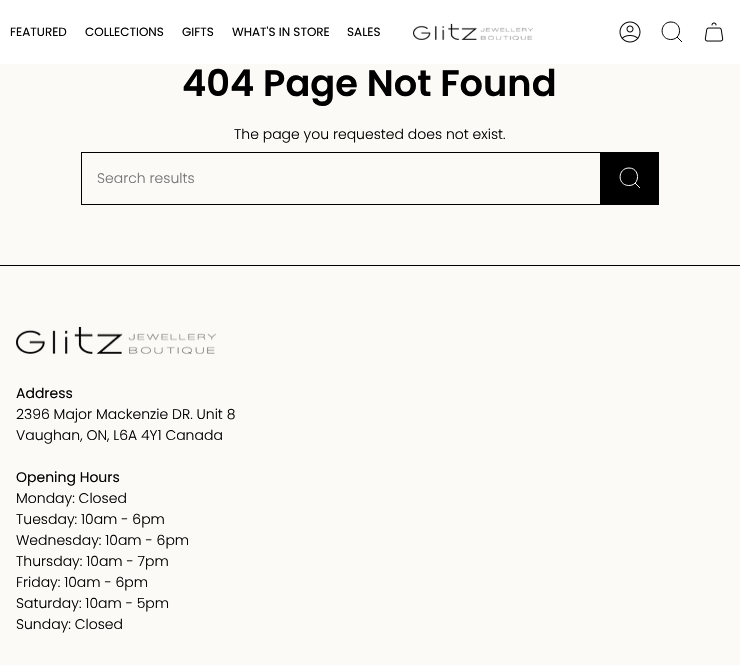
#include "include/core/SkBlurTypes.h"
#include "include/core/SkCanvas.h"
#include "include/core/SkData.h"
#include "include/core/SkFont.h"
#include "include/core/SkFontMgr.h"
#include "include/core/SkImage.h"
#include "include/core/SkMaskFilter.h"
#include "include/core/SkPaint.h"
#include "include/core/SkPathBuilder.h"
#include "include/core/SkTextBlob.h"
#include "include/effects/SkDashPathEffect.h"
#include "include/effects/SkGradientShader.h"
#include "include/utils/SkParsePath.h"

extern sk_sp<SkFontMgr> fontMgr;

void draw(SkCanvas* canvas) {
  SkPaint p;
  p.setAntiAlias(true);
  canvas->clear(SkColorSetRGB(252, 250, 247));
  p.setColor(SK_ColorWHITE);
  canvas->drawRect(SkRect::MakeLTRB(0, 0, 740, 64), p);
  canvas->drawImageRect(SkImages::DeferredFromEncodedData(SkData::MakeFromFileName("images/1.png")), SkRect::MakeLTRB(413, 23, 533, 40), SkSamplingOptions());
  canvas->drawImageRect(SkImages::DeferredFromEncodedData(SkData::MakeFromFileName("images/2.png")), SkRect::MakeLTRB(619, 21, 641, 43), SkSamplingOptions());
  p.setStyle(SkPaint::kStroke_Style);
  p.setStrokeWidth(1);
  p.setColor(SK_ColorBLACK);
  canvas->drawPath(SkPathBuilder().moveTo(671, 22).cubicTo(682.5f, 22, 682.5f, 40, 670.5f, 39.5f).cubicTo(659, 39, 659.5f, 22, 671, 22).close().moveTo(677, 37).lineTo(682, 42).detach(), p);
  canvas->drawImageRect(SkImages::DeferredFromEncodedData(SkData::MakeFromFileName("images/3.png")), SkRect::MakeLTRB(704, 22, 724, 42), SkSamplingOptions());
  canvas->drawRect(SkRect::MakeLTRB(81.5f, 152.5f, 600.5f, 204.5f), p);
  p.setStyle(SkPaint::kFill_Style);
  canvas->drawRect(SkRect::MakeLTRB(601, 152, 659, 205), p);
  p.setStyle(SkPaint::kStroke_Style);
  p.setColor(SK_ColorWHITE);
  canvas->drawPath(SkPathBuilder().moveTo(629, 168).cubicTo(640.5f, 168, 640.5f, 186, 628.5f, 185.5f).cubicTo(617, 185, 617.5f, 168, 629, 168).close().moveTo(635, 183).lineTo(640, 188).detach(), p);
  p.setStyle(SkPaint::kFill_Style);
  p.setColor(SK_ColorBLACK);
  canvas->drawRect(SkRect::MakeLTRB(0, 265, 740, 266), p);
  canvas->drawImageRect(SkImages::DeferredFromEncodedData(SkData::MakeFromFileName("images/4.png")), SkRect::MakeLTRB(16, 327, 216, 354), SkSamplingOptions());
  SkFont font1(fontMgr->matchFamilyStyle("Poppins", SkFontStyle::Normal()), 12);
  font1.setSubpixel(true);
  canvas->drawString("FEATURED", 10, 36, font1, p);
  canvas->drawString("COLLECTIONS", 85, 36, font1, p);
  canvas->drawString("GIFTS", 182, 36, font1, p);
  canvas->drawString("WHAT'S IN STORE", 232, 36, font1, p);
  canvas->drawString("SALES", 347, 36, font1, p);
  SkFont font2(fontMgr->matchFamilyStyle("Poppins", SkFontStyle(600, SkFontStyle::kNormal_Width, SkFontStyle::kUpright_Slant)), 36.75f);
  font2.setSubpixel(true);
  canvas->drawString("404 Page Not Found", 182, 96, font2, p);
  SkFont font3(fontMgr->matchFamilyStyle("Poppins", SkFontStyle(300, SkFontStyle::kNormal_Width, SkFontStyle::kUpright_Slant)), 14);
  font3.setSubpixel(true);
  canvas->drawString("The page you requested does not exist.", 234, 139, font3, p);
  p.setColor(SkColorSetRGB(117, 117, 117));
  canvas->drawString("Search results", 97, 183, font3, p);
  SkFont font4(fontMgr->matchFamilyStyle("Poppins", SkFontStyle::Normal()), 14);
  font4.setSubpixel(true);
  p.setColor(SK_ColorBLACK);
  canvas->drawString("Address", 16, 398, font4, p);
  canvas->drawString("2396 Major Mackenzie DR. Unit 8", 16, 419, font3, p);
  canvas->drawString("Vaughan, ON, L6A 4Y1 Canada", 16, 440, font3, p);
  canvas->drawString("Opening Hours", 16, 482, font4, p);
  canvas->drawString("Monday: Closed", 16, 503, font3, p);
  canvas->drawString("Tuesday: 10am - 6pm", 16, 524, font3, p);
  canvas->drawString("Wednesday: 10am - 6pm", 16, 545, font3, p);
  canvas->drawString("Thursday: 10am - 7pm", 16, 566, font3, p);
  canvas->drawString("Friday: 10am - 6pm", 16, 587, font3, p);
  canvas->drawString("Saturday: 10am - 5pm", 16, 608, font3, p);
  canvas->drawString("Sunday: Closed", 16, 629, font3, p);
}
